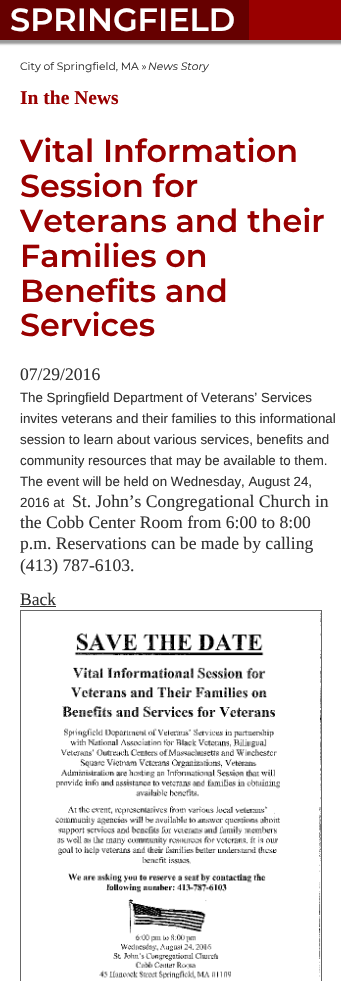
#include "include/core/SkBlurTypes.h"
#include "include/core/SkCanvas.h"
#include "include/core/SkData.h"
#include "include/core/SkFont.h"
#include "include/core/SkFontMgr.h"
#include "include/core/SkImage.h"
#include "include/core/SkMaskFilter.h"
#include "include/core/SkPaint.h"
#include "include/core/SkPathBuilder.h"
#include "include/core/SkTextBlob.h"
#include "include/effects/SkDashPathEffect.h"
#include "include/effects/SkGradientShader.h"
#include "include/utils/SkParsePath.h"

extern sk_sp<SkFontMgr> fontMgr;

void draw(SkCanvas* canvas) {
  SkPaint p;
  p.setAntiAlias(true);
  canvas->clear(SK_ColorWHITE);
  p.setColor(SkColorSetARGB(102, 0, 0, 0));
  p.setMaskFilter(SkMaskFilter::MakeBlur(kNormal_SkBlurStyle, 1));
  canvas->drawRect(SkRect::MakeLTRB(-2, 0, 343, 44), p);
  p.setMaskFilter(nullptr);
  p.setColor(SkColorSetRGB(153, 0, 0));
  canvas->drawRect(SkRect::MakeLTRB(249, 0, 341, 40), p);
  p.setColor(SkColorSetRGB(102, 0, 0));
  canvas->drawRect(SkRect::MakeLTRB(0, 0, 249, 40), p);
  p.setColor(SkColorSetRGB(51, 51, 51));
  canvas->drawRect(SkRect::MakeLTRB(20, 606, 56, 607), p);
  p.setStyle(SkPaint::kStroke_Style);
  p.setStrokeWidth(1);
  p.setColor(SkColorSetRGB(102, 102, 102));
  canvas->drawRect(SkRect::MakeLTRB(20.5f, 610.5f, 321.5f, 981.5f), p);
  canvas->drawImageRect(SkImages::DeferredFromEncodedData(SkData::MakeFromFileName("images/1.png")), SkRect::MakeLTRB(55, 613, 321, 979), SkSamplingOptions());
  SkFont font1(fontMgr->matchFamilyStyle("Montserrat", SkFontStyle(600, SkFontStyle::kNormal_Width, SkFontStyle::kUpright_Slant)), 32);
  font1.setSubpixel(true);
  p.setStyle(SkPaint::kFill_Style);
  p.setColor(SK_ColorWHITE);
  canvas->drawString("SPRINGFIELD", 10, 31, font1, p);
  SkFont font2(fontMgr->matchFamilyStyle("Montserrat", SkFontStyle::Normal()), 10.75f);
  font2.setSubpixel(true);
  p.setColor(SkColorSetRGB(51, 51, 51));
  canvas->drawString("City of Springfield, MA »", 20, 70, font2, p);
  SkFont font3(fontMgr->matchFamilyStyle("Montserrat", SkFontStyle(100, SkFontStyle::kNormal_Width, SkFontStyle::kItalic_Slant)), 10.75f);
  font3.setSubpixel(true);
  canvas->drawString("News Story", 148, 70, font3, p);
  SkFont font4(fontMgr->matchFamilyStyle("Liberation Serif", SkFontStyle::Bold()), 19.5f);
  font4.setSubpixel(true);
  p.setColor(SkColorSetRGB(153, 0, 0));
  canvas->drawString("In the News", 20, 104, font4, p);
  SkFont font5(fontMgr->matchFamilyStyle("Montserrat", SkFontStyle(600, SkFontStyle::kNormal_Width, SkFontStyle::kUpright_Slant)), 31.75f);
  font5.setSubpixel(true);
  canvas->drawString("Vital Information", 20, 162, font5, p);
  canvas->drawString("Session for", 20, 197, font5, p);
  canvas->drawString("Veterans and their", 20, 232, font5, p);
  canvas->drawString("Families on", 20, 267, font5, p);
  canvas->drawString("Benefits and", 20, 302, font5, p);
  canvas->drawString("Services", 20, 336, font5, p);
  SkFont font6(fontMgr->matchFamilyStyle("Liberation Serif", SkFontStyle::Normal()), 17.6f);
  font6.setSubpixel(true);
  p.setColor(SkColorSetRGB(51, 51, 51));
  canvas->drawString("07/29/2016", 20, 380, font6, p);
  SkFont font7(fontMgr->matchFamilyStyle("Liberation Sans", SkFontStyle::Normal()), 13.3f);
  font7.setSubpixel(true);
  canvas->drawString("The Springfield Department of Veterans’ Services", 20, 402, font7, p);
  canvas->drawString("invites veterans and their families to this informational", 20, 423, font7, p);
  canvas->drawString("session to learn about various services, benefits and", 20, 444, font7, p);
  canvas->drawString("community resources that may be available to them.", 20, 465, font7, p);
  canvas->drawString("The event will be held on Wednesday, August 24,", 20, 486, font7, p);
  canvas->drawString("2016 at", 20, 507, font7, p);
  canvas->drawString("St. John’s Congregational Church in", 72, 507, font6, p);
  canvas->drawString("the Cobb Center Room from 6:00 to 8:00", 20, 528, font6, p);
  canvas->drawString("p.m. Reservations can be made by calling", 20, 549, font6, p);
  canvas->drawString("(413) 787-6103.", 20, 571, font6, p);
  canvas->drawString("Back", 20, 605, font6, p);
}
